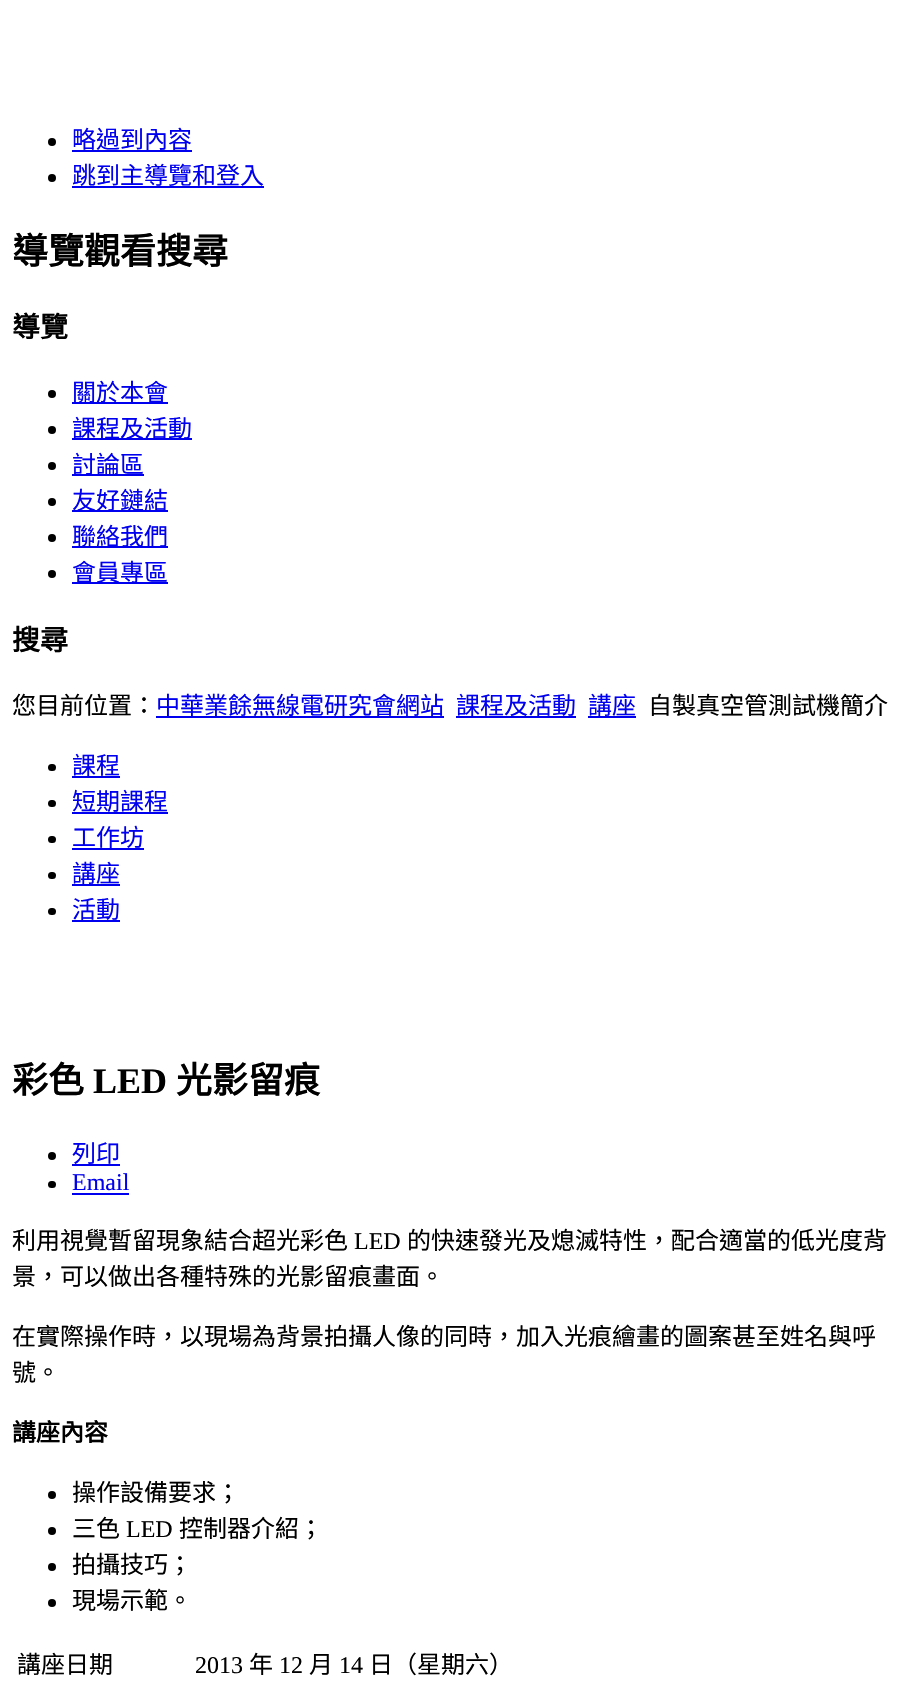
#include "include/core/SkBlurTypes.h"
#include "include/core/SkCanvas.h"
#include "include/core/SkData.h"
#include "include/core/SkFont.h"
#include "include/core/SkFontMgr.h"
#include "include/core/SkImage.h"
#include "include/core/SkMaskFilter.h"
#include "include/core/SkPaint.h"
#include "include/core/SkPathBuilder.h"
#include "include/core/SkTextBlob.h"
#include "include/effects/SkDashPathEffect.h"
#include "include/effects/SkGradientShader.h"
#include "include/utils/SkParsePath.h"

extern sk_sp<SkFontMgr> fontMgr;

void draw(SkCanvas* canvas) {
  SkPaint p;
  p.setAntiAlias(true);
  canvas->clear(SK_ColorWHITE);
  p.setColor(SK_ColorBLACK);
  canvas->drawCircle(52, 142, 4, p);
  p.setColor(SkColorSetRGB(0, 0, 238));
  canvas->drawRect(SkRect::MakeLTRB(72, 150, 192, 152), p);
  p.setColor(SK_ColorBLACK);
  canvas->drawCircle(52, 178, 4, p);
  p.setColor(SkColorSetRGB(0, 0, 238));
  canvas->drawRect(SkRect::MakeLTRB(72, 186, 264, 188), p);
  p.setColor(SK_ColorBLACK);
  canvas->drawCircle(52, 394, 4, p);
  p.setColor(SkColorSetRGB(0, 0, 238));
  canvas->drawRect(SkRect::MakeLTRB(72, 402, 168, 404), p);
  p.setColor(SK_ColorBLACK);
  canvas->drawCircle(52, 430, 4, p);
  p.setColor(SkColorSetRGB(0, 0, 238));
  canvas->drawRect(SkRect::MakeLTRB(72, 438, 192, 440), p);
  p.setColor(SK_ColorBLACK);
  canvas->drawCircle(52, 466, 4, p);
  p.setColor(SkColorSetRGB(0, 0, 238));
  canvas->drawRect(SkRect::MakeLTRB(72, 474, 144, 476), p);
  p.setColor(SK_ColorBLACK);
  canvas->drawCircle(52, 502, 4, p);
  p.setColor(SkColorSetRGB(0, 0, 238));
  canvas->drawRect(SkRect::MakeLTRB(72, 510, 168, 512), p);
  p.setColor(SK_ColorBLACK);
  canvas->drawCircle(52, 538, 4, p);
  p.setColor(SkColorSetRGB(0, 0, 238));
  canvas->drawRect(SkRect::MakeLTRB(72, 546, 168, 548), p);
  p.setColor(SK_ColorBLACK);
  canvas->drawCircle(52, 574, 4, p);
  p.setColor(SkColorSetRGB(0, 0, 238));
  canvas->drawRect(SkRect::MakeLTRB(72, 582, 168, 584), p);
  canvas->drawRect(SkRect::MakeLTRB(156, 716, 444, 718), p);
  canvas->drawRect(SkRect::MakeLTRB(456, 716, 576, 718), p);
  canvas->drawRect(SkRect::MakeLTRB(588, 716, 636, 718), p);
  p.setColor(SK_ColorBLACK);
  canvas->drawRoundRect(SkRect::MakeLTRB(48, 764, 56, 771), 3.5f, 3.5f, p);
  p.setColor(SkColorSetRGB(0, 0, 238));
  canvas->drawRect(SkRect::MakeLTRB(72, 776, 120, 778), p);
  p.setColor(SK_ColorBLACK);
  canvas->drawRoundRect(SkRect::MakeLTRB(48, 800, 56, 807), 3.5f, 3.5f, p);
  p.setColor(SkColorSetRGB(0, 0, 238));
  canvas->drawRect(SkRect::MakeLTRB(72, 812, 168, 814), p);
  p.setColor(SK_ColorBLACK);
  canvas->drawRoundRect(SkRect::MakeLTRB(48, 836, 56, 843), 3.5f, 3.5f, p);
  p.setColor(SkColorSetRGB(0, 0, 238));
  canvas->drawRect(SkRect::MakeLTRB(72, 848, 144, 850), p);
  p.setColor(SK_ColorBLACK);
  canvas->drawRoundRect(SkRect::MakeLTRB(48, 872, 56, 879), 3.5f, 3.5f, p);
  p.setColor(SkColorSetRGB(0, 0, 238));
  canvas->drawRect(SkRect::MakeLTRB(72, 884, 120, 886), p);
  p.setColor(SK_ColorBLACK);
  canvas->drawRoundRect(SkRect::MakeLTRB(48, 908, 56, 915), 3.5f, 3.5f, p);
  p.setColor(SkColorSetRGB(0, 0, 238));
  canvas->drawRect(SkRect::MakeLTRB(72, 920, 120, 922), p);
  p.setColor(SK_ColorBLACK);
  canvas->drawCircle(52, 1156, 4, p);
  p.setColor(SkColorSetRGB(0, 0, 238));
  canvas->drawRect(SkRect::MakeLTRB(72, 1164, 120, 1166), p);
  p.setColor(SK_ColorBLACK);
  canvas->drawRoundRect(SkRect::MakeLTRB(48, 1181, 56, 1188), 3.5f, 3.5f, p);
  p.setColor(SkColorSetRGB(0, 0, 238));
  canvas->drawRect(SkRect::MakeLTRB(72, 1193, 129, 1195), p);
  p.setColor(SK_ColorBLACK);
  canvas->drawCircle(52, 1495, 4, p);
  canvas->drawCircle(52, 1531, 4, p);
  canvas->drawCircle(52, 1567, 4, p);
  canvas->drawCircle(52, 1603, 4, p);
  SkFont font1(fontMgr->matchFamilyStyle("Noto Sans CJK TC", SkFontStyle::Normal()), 24);
  font1.setSubpixel(true);
  p.setColor(SkColorSetRGB(0, 0, 238));
  canvas->drawString("略過到內容", 72, 148, font1, p);
  canvas->drawString("跳到主導覽和登入", 72, 184, font1, p);
  SkFont font2(fontMgr->matchFamilyStyle("Noto Sans CJK TC", SkFontStyle::Bold()), 36);
  font2.setSubpixel(true);
  p.setColor(SK_ColorBLACK);
  canvas->drawString("導覽觀看搜尋", 12, 264, font2, p);
  SkFont font3(fontMgr->matchFamilyStyle("Noto Sans CJK TC", SkFontStyle::Bold()), 28);
  font3.setSubpixel(true);
  canvas->drawString("導覽", 12, 337, font3, p);
  p.setColor(SkColorSetRGB(0, 0, 238));
  canvas->drawString("關於本會", 72, 401, font1, p);
  canvas->drawString("課程及活動", 72, 437, font1, p);
  canvas->drawString("討論區", 72, 473, font1, p);
  canvas->drawString("友好鏈結", 72, 509, font1, p);
  canvas->drawString("聯絡我們", 72, 545, font1, p);
  canvas->drawString("會員專區", 72, 581, font1, p);
  p.setColor(SK_ColorBLACK);
  canvas->drawString("搜尋", 12, 650, font3, p);
  canvas->drawString("您目前位置：", 12, 714, font1, p);
  p.setColor(SkColorSetRGB(0, 0, 238));
  canvas->drawString("中華業餘無線電研究會網站", 156, 714, font1, p);
  canvas->drawString("課程及活動", 456, 714, font1, p);
  canvas->drawString("講座", 588, 714, font1, p);
  p.setColor(SK_ColorBLACK);
  canvas->drawString("自製真空管測試機簡介", 648, 714, font1, p);
  p.setColor(SkColorSetRGB(0, 0, 238));
  canvas->drawString("課程", 72, 774, font1, p);
  canvas->drawString("短期課程", 72, 810, font1, p);
  canvas->drawString("工作坊", 72, 846, font1, p);
  canvas->drawString("講座", 72, 882, font1, p);
  canvas->drawString("活動", 72, 918, font1, p);
  p.setColor(SK_ColorBLACK);
  canvas->drawString("彩色", 12, 1093, font2, p);
  SkFont font4(fontMgr->matchFamilyStyle("Liberation Serif", SkFontStyle::Bold()), 36);
  font4.setSubpixel(true);
  canvas->drawString("LED", 93, 1093, font4, p);
  canvas->drawString("光影留痕", 176, 1093, font2, p);
  p.setColor(SkColorSetRGB(0, 0, 238));
  canvas->drawString("列印", 72, 1162, font1, p);
  SkFont font5(fontMgr->matchFamilyStyle("Liberation Serif", SkFontStyle::Normal()), 24);
  font5.setSubpixel(true);
  canvas->drawString("Email", 72, 1190, font5, p);
  p.setColor(SK_ColorBLACK);
  canvas->drawString("利用視覺暫留現象結合超光彩色", 12, 1249, font1, p);
  canvas->drawString("LED", 354, 1249, font5, p);
  canvas->drawString("的快速發光及熄滅特性，配合適當的低光度背", 407, 1249, font1, p);
  canvas->drawString("景，可以做出各種特殊的光影留痕畫面。", 12, 1285, font1, p);
  canvas->drawString("在實際操作時，以現場為背景拍攝人像的同時，加入光痕繪畫的圖案甚至姓名與呼", 12, 1345, font1, p);
  canvas->drawString("號。", 12, 1381, font1, p);
  SkFont font6(fontMgr->matchFamilyStyle("Noto Sans CJK TC", SkFontStyle::Bold()), 24);
  font6.setSubpixel(true);
  canvas->drawString("講座內容", 12, 1441, font6, p);
  canvas->drawString("操作設備要求；", 72, 1501, font1, p);
  canvas->drawString("三色", 72, 1537, font1, p);
  canvas->drawString("LED", 126, 1537, font5, p);
  canvas->drawString("控制器介紹；", 179, 1537, font1, p);
  canvas->drawString("拍攝技巧；", 72, 1573, font1, p);
  canvas->drawString("現場示範。", 72, 1609, font1, p);
  canvas->drawString("講座日期", 17, 1673, font1, p);
  canvas->drawString("2013", 195, 1673, font5, p);
  canvas->drawString("年", 249, 1673, font1, p);
  canvas->drawString("12", 279, 1673, font5, p);
  canvas->drawString("月", 309, 1673, font1, p);
  canvas->drawString("14", 339, 1673, font5, p);
  canvas->drawString("日（星期六）", 369, 1673, font1, p);
}
